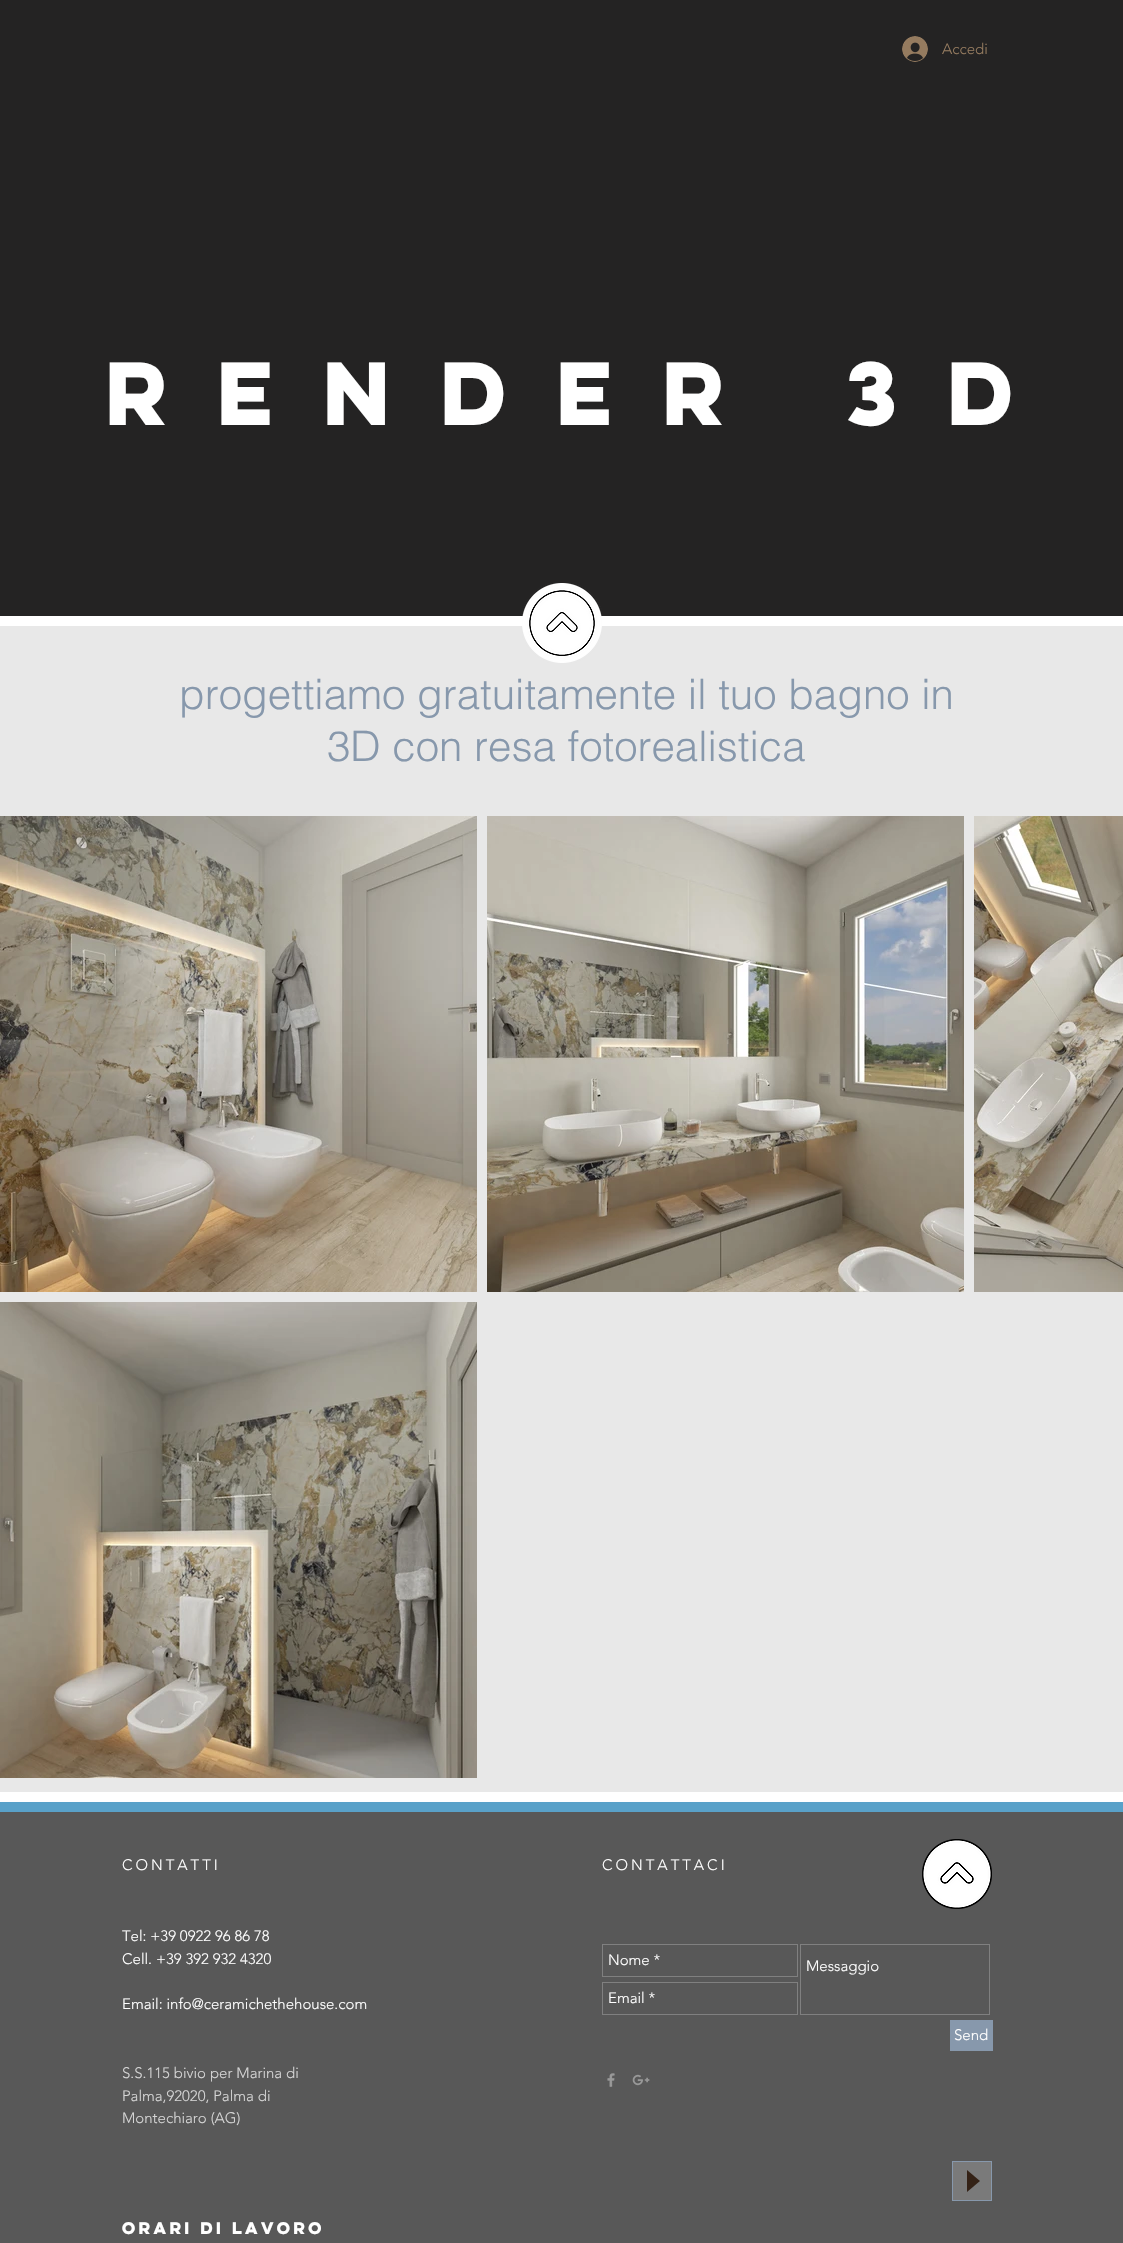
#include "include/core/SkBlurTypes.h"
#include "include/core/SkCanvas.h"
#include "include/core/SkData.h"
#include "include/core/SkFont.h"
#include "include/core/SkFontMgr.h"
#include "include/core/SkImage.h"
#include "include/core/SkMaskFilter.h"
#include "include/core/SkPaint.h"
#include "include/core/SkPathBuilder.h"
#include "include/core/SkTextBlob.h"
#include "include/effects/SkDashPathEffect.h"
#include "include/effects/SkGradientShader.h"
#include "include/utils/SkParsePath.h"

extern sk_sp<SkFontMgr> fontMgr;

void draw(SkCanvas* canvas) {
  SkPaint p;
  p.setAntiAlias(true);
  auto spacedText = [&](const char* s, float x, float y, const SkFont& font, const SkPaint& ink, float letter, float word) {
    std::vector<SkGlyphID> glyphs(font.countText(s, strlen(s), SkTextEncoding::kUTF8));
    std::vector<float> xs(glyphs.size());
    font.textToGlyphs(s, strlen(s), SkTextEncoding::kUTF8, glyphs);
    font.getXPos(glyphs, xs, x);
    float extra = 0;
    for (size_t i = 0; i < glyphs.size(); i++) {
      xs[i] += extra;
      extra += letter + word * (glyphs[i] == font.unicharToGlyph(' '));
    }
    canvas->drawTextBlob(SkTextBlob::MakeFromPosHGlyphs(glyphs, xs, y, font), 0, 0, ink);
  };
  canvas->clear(SK_ColorWHITE);
  p.setColor(SkColorSetRGB(88, 88, 88));
  canvas->drawRect(SkRect::MakeLTRB(0, 1812, 1123, 2243), p);
  p.setColor(SkColorSetRGB(36, 35, 35));
  canvas->drawRect(SkRect::MakeLTRB(0, 0, 1123, 616), p);
  canvas->drawImageRect(SkImages::DeferredFromEncodedData(SkData::MakeFromFileName("images/1.png")), SkRect::MakeLTRB(902, 36, 928, 62), SkSamplingOptions());
  p.setColor(SkColorSetRGB(232, 232, 232));
  canvas->drawRect(SkRect::MakeLTRB(0, 626, 1123, 1792), p);
  canvas->drawImageRect(SkImages::DeferredFromEncodedData(SkData::MakeFromFileName("images/2.png")), SkRect::MakeLTRB(522, 583, 602, 663), SkSamplingOptions());
  canvas->drawImageRect(SkImages::DeferredFromEncodedData(SkData::MakeFromFileName("images/3.png")), SkRect::MakeLTRB(0, 816, 477, 1292), SkSamplingOptions());
  canvas->drawImageRect(SkImages::DeferredFromEncodedData(SkData::MakeFromFileName("images/4.png")), SkRect::MakeLTRB(487, 816, 964, 1292), SkSamplingOptions());
  canvas->drawImageRect(SkImages::DeferredFromEncodedData(SkData::MakeFromFileName("images/5.png")), SkRect::MakeLTRB(974, 816, 1123, 1292), SkSamplingOptions());
  canvas->drawImageRect(SkImages::DeferredFromEncodedData(SkData::MakeFromFileName("images/6.png")), SkRect::MakeLTRB(0, 1302, 477, 1778), SkSamplingOptions());
  p.setColor(SkColorSetRGB(89, 161, 201));
  canvas->drawRect(SkRect::MakeLTRB(0, 1802, 1123, 1812), p);
  canvas->drawImageRect(SkImages::DeferredFromEncodedData(SkData::MakeFromFileName("images/7.png")), SkRect::MakeLTRB(922, 1839, 992, 1909), SkSamplingOptions());
  p.setStyle(SkPaint::kStroke_Style);
  p.setStrokeWidth(1);
  p.setColor(SkColorSetRGB(128, 128, 128));
  canvas->drawRect(SkRect::MakeLTRB(602.5f, 1944.5f, 797.5f, 1976.5f), p);
  canvas->drawRect(SkRect::MakeLTRB(800.5f, 1944.5f, 989.5f, 2014.5f), p);
  canvas->drawRect(SkRect::MakeLTRB(602.5f, 1982.5f, 797.5f, 2014.5f), p);
  p.setStyle(SkPaint::kFill_Style);
  p.setColor(SkColorSetRGB(135, 152, 172));
  canvas->drawRect(SkRect::MakeLTRB(950, 2020, 993, 2051), p);
  canvas->drawImageRect(SkImages::DeferredFromEncodedData(SkData::MakeFromFileName("images/8.png")), SkRect::MakeLTRB(607, 2073, 615, 2087), SkSamplingOptions());
  canvas->drawImageRect(SkImages::DeferredFromEncodedData(SkData::MakeFromFileName("images/9.png")), SkRect::MakeLTRB(632, 2074, 650, 2086), SkSamplingOptions());
  p.setColor(SkColorSetRGB(122, 122, 122));
  canvas->drawRect(SkRect::MakeLTRB(952.5f, 2161.5f, 991.5f, 2200.5f), p);
  p.setStyle(SkPaint::kStroke_Style);
  p.setColor(SkColorSetRGB(135, 152, 172));
  canvas->drawRect(SkRect::MakeLTRB(952.5f, 2161.5f, 991.5f, 2200.5f), p);
  p.setStyle(SkPaint::kFill_Style);
  p.setColor(SkColorSetRGB(52, 34, 22));
  canvas->drawPath(SkPathBuilder().moveTo(967, 2192).lineTo(967, 2170).lineTo(980, 2181).close().detach(), p);
  SkFont font1(fontMgr->matchFamilyStyle("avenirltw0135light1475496", SkFontStyle(300, SkFontStyle::kNormal_Width, SkFontStyle::kUpright_Slant)), 15);
  font1.setSubpixel(true);
  p.setColor(SkColorSetRGB(149, 123, 95));
  canvas->drawString("Accedi", 942, 54, font1, p);
  SkFont font2(fontMgr->matchFamilyStyle("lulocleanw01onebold", SkFontStyle::Bold()), 80);
  font2.setSubpixel(true);
  p.setColor(SK_ColorWHITE);
  spacedText("render 3d", 105, 425, font2, p, 32, 0);
  SkFont font3(fontMgr->matchFamilyStyle("helvetica", SkFontStyle(300, SkFontStyle::kNormal_Width, SkFontStyle::kUpright_Slant)), 42);
  font3.setSubpixel(true);
  p.setColor(SkColorSetRGB(135, 152, 172));
  canvas->drawString("progettiamo gratuitamente il tuo bagno in", 179, 709, font3, p);
  canvas->drawString("3D con resa fotorealistica", 327, 761, font3, p);
  p.setColor(SK_ColorWHITE);
  spacedText("CONTATTI", 122, 1870, font1, p, 3, 0);
  spacedText("CONTATTACI", 602, 1870, font1, p, 3, 0);
  canvas->drawString("Tel: +39 0922 96 86 78", 122, 1941, font1, p);
  canvas->drawString("Cell. +39 392 932 4320", 122, 1964, font1, p);
  canvas->drawString("Email: info@ceramichethehouse.com", 122, 2009, font1, p);
  canvas->drawString("Nome *", 608, 1965, font1, p);
  canvas->drawString("Messaggio", 806, 1971, font1, p);
  canvas->drawString("Email *", 608, 2003, font1, p);
  canvas->drawString("Send", 954, 2040, font1, p);
  p.setColor(SkColorSetRGB(213, 213, 213));
  canvas->drawString("S.S.115 bivio per Marina di", 122, 2078, font1, p);
  canvas->drawString("Palma,92020, Palma di", 122, 2101, font1, p);
  canvas->drawString("Montechiaro (AG)", 122, 2123, font1, p);
  SkFont font4(fontMgr->matchFamilyStyle("lulocleanw01onebold", SkFontStyle::Bold()), 15);
  font4.setSubpixel(true);
  p.setColor(SK_ColorWHITE);
  canvas->drawString("ORARI DI LAVORO", 122, 2234, font4, p);
}
